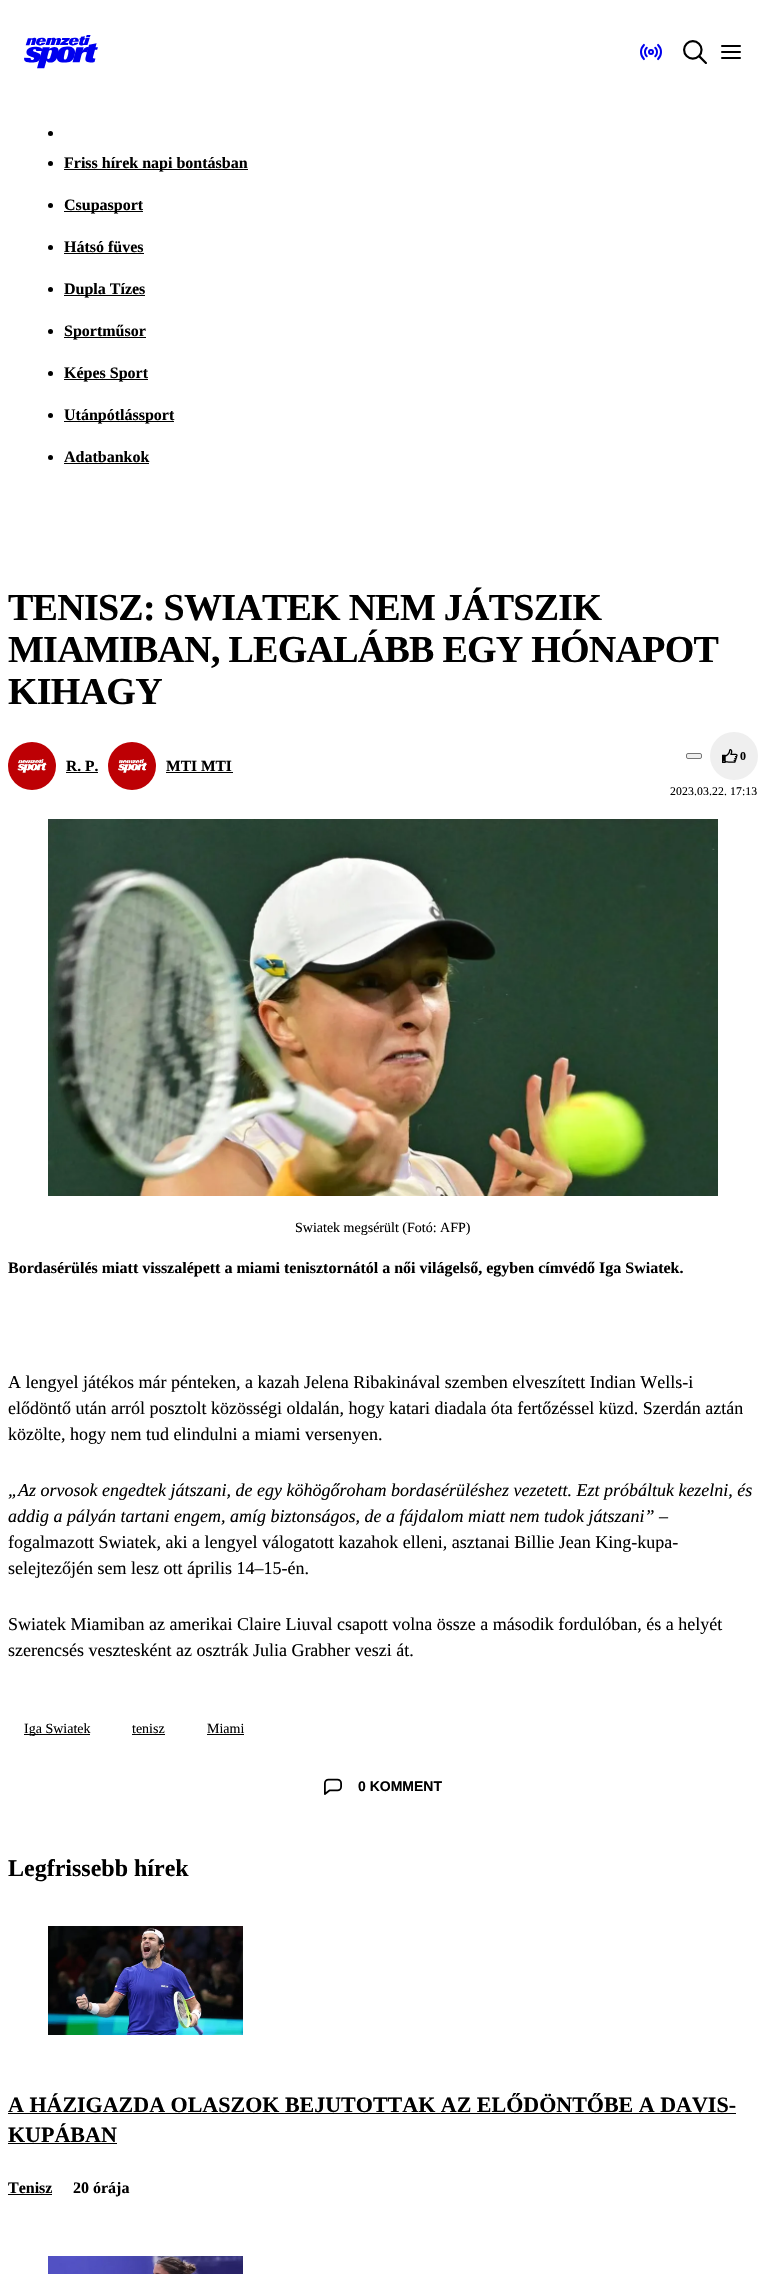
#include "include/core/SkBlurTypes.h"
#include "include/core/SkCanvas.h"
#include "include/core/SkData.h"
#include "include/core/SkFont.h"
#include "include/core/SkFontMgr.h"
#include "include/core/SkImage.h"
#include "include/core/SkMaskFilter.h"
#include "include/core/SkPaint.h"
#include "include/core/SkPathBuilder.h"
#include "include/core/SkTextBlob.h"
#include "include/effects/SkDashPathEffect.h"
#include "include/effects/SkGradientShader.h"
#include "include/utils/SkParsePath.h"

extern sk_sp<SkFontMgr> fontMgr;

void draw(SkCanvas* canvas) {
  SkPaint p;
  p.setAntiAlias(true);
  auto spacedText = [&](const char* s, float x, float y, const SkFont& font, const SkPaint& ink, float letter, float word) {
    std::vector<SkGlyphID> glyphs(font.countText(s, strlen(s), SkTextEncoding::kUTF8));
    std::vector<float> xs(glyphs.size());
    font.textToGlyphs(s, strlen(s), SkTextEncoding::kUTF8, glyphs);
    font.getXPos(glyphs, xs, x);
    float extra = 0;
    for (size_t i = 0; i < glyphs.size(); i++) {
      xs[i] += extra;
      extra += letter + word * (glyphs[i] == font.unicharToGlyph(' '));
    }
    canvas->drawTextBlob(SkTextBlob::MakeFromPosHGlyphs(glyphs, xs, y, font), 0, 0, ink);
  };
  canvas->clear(SK_ColorWHITE);
  canvas->drawImageRect(SkImages::DeferredFromEncodedData(SkData::MakeFromFileName("images/1.png")), SkRect::MakeLTRB(24, 35, 98, 69), SkSamplingOptions());
  canvas->drawImageRect(SkImages::DeferredFromEncodedData(SkData::MakeFromFileName("images/2.png")), SkRect::MakeLTRB(640, 43, 662, 61), SkSamplingOptions());
  canvas->drawImageRect(SkImages::DeferredFromEncodedData(SkData::MakeFromFileName("images/3.png")), SkRect::MakeLTRB(683, 40, 707, 64), SkSamplingOptions());
  canvas->drawImageRect(SkImages::DeferredFromEncodedData(SkData::MakeFromFileName("images/4.png")), SkRect::MakeLTRB(721, 45, 741, 59), SkSamplingOptions());
  p.setColor(SK_ColorBLACK);
  canvas->drawCircle(50.5f, 133.5f, 2.5f, p);
  canvas->drawCircle(50.5f, 163.5f, 2.5f, p);
  canvas->drawRect(SkRect::MakeLTRB(64, 169, 248, 170), p);
  canvas->drawCircle(50.5f, 205.5f, 2.5f, p);
  canvas->drawRect(SkRect::MakeLTRB(64, 211, 143, 212), p);
  canvas->drawCircle(50.5f, 247.5f, 2.5f, p);
  canvas->drawRect(SkRect::MakeLTRB(64, 253, 144, 254), p);
  canvas->drawCircle(50.5f, 289.5f, 2.5f, p);
  canvas->drawRect(SkRect::MakeLTRB(64, 295, 145, 296), p);
  canvas->drawCircle(50.5f, 331.5f, 2.5f, p);
  canvas->drawRect(SkRect::MakeLTRB(64, 337, 146, 338), p);
  canvas->drawCircle(50.5f, 373.5f, 2.5f, p);
  canvas->drawRect(SkRect::MakeLTRB(64, 379, 148, 380), p);
  canvas->drawCircle(50.5f, 415.5f, 2.5f, p);
  canvas->drawRect(SkRect::MakeLTRB(64, 421, 174, 422), p);
  canvas->drawCircle(50.5f, 457.5f, 2.5f, p);
  canvas->drawRect(SkRect::MakeLTRB(64, 463, 149, 464), p);
  canvas->drawImageRect(SkImages::DeferredFromEncodedData(SkData::MakeFromFileName("images/5.png")), SkRect::MakeLTRB(8, 742, 56, 790), SkSamplingOptions());
  canvas->drawRect(SkRect::MakeLTRB(66, 772, 98, 773), p);
  canvas->drawImageRect(SkImages::DeferredFromEncodedData(SkData::MakeFromFileName("images/6.png")), SkRect::MakeLTRB(108, 742, 156, 790), SkSamplingOptions());
  canvas->drawRect(SkRect::MakeLTRB(166, 772, 233, 773), p);
  p.setColor(SkColorSetRGB(239, 239, 239));
  canvas->drawRoundRect(SkRect::MakeLTRB(686.5f, 753.5f, 701.5f, 758.5f), 1.5f, 1.5f, p);
  p.setStyle(SkPaint::kStroke_Style);
  p.setStrokeWidth(1);
  p.setColor(SkColorSetRGB(118, 118, 118));
  canvas->drawRoundRect(SkRect::MakeLTRB(686.5f, 753.5f, 701.5f, 758.5f), 1.5f, 1.5f, p);
  p.setStyle(SkPaint::kFill_Style);
  p.setColor(SkColorSetRGB(239, 239, 239));
  canvas->drawCircle(734, 756, 24, p);
  canvas->drawImageRect(SkImages::DeferredFromEncodedData(SkData::MakeFromFileName("images/7.png")), SkRect::MakeLTRB(722, 749, 738, 763), SkSamplingOptions());
  canvas->drawImageRect(SkImages::DeferredFromEncodedData(SkData::MakeFromFileName("images/8.png")), SkRect::MakeLTRB(48, 819, 718, 1196), SkSamplingOptions());
  p.setColor(SK_ColorBLACK);
  canvas->drawRect(SkRect::MakeLTRB(24, 1734, 90, 1735), p);
  canvas->drawRect(SkRect::MakeLTRB(132, 1734, 165, 1735), p);
  canvas->drawRect(SkRect::MakeLTRB(207, 1734, 244, 1735), p);
  canvas->drawImageRect(SkImages::DeferredFromEncodedData(SkData::MakeFromFileName("images/9.png")), SkRect::MakeLTRB(324, 1778, 342, 1795), SkSamplingOptions());
  canvas->drawImageRect(SkImages::DeferredFromEncodedData(SkData::MakeFromFileName("images/10.png")), SkRect::MakeLTRB(48, 1926, 243, 2035), SkSamplingOptions());
  canvas->drawRect(SkRect::MakeLTRB(8, 2113, 736, 2114), p);
  canvas->drawRect(SkRect::MakeLTRB(8, 2143, 117, 2144), p);
  canvas->drawRect(SkRect::MakeLTRB(8, 2194, 52, 2195), p);
  canvas->drawImageRect(SkImages::DeferredFromEncodedData(SkData::MakeFromFileName("images/11.png")), SkRect::MakeLTRB(48, 2256, 243, 2274), SkSamplingOptions());
  SkFont font1(fontMgr->matchFamilyStyle("Liberation Serif", SkFontStyle::Bold()), 16);
  font1.setSubpixel(true);
  canvas->drawString("Friss hírek napi bontásban", 64, 168, font1, p);
  canvas->drawString("Csupasport", 64, 210, font1, p);
  canvas->drawString("Hátsó füves", 64, 252, font1, p);
  canvas->drawString("Dupla Tízes", 64, 294, font1, p);
  canvas->drawString("Sportműsor", 64, 336, font1, p);
  canvas->drawString("Képes Sport", 64, 378, font1, p);
  canvas->drawString("Utánpótlássport", 64, 420, font1, p);
  canvas->drawString("Adatbankok", 64, 462, font1, p);
  SkFont font2(fontMgr->matchFamilyStyle("Liberation Serif", SkFontStyle::Bold()), 38);
  font2.setSubpixel(true);
  spacedText("TENISZ: SWIATEK NEM JÁTSZIK", 8, 620, font2, p, -0.75f, 0);
  spacedText("MIAMIBAN, LEGALÁBB EGY HÓNAPOT", 8, 662, font2, p, -0.75f, 0);
  spacedText("KIHAGY", 8, 704, font2, p, -0.75f, 0);
  SkFont font3(fontMgr->matchFamilyStyle("Liberation Serif", SkFontStyle::Bold()), 15.5f);
  font3.setSubpixel(true);
  canvas->drawString("R. P.", 66, 771, font3, p);
  canvas->drawString("MTI MTI", 166, 771, font3, p);
  SkFont font4(fontMgr->matchFamilyStyle("Liberation Serif", SkFontStyle::Bold()), 12);
  font4.setSubpixel(true);
  canvas->drawString("0", 740, 760, font4, p);
  SkFont font5(fontMgr->matchFamilyStyle("Liberation Serif", SkFontStyle::Normal()), 11.75f);
  font5.setSubpixel(true);
  spacedText("2023.03.22. 17:13", 670, 795, font5, p, 0.1f, 0);
  SkFont font6(fontMgr->matchFamilyStyle("Liberation Serif", SkFontStyle::Normal()), 14);
  font6.setSubpixel(true);
  canvas->drawString("Swiatek megsérült (Fotó: AFP)", 295, 1232, font6, p);
  canvas->drawString("Bordasérülés miatt visszalépett a miami tenisztornától a női világelső, egyben címvédő Iga Swiatek.", 8, 1273, font1, p);
  SkFont font7(fontMgr->matchFamilyStyle("Liberation Serif", SkFontStyle::Normal()), 18);
  font7.setSubpixel(true);
  canvas->drawString("A lengyel játékos már pénteken, a kazah Jelena Ribakinával szemben elveszített Indian Wells-i", 8, 1388, font7, p);
  canvas->drawString("elődöntő után arról posztolt közösségi oldalán, hogy katari diadala óta fertőzéssel küzd. Szerdán aztán", 8, 1414, font7, p);
  canvas->drawString("közölte, hogy nem tud elindulni a miami versenyen.", 8, 1440, font7, p);
  SkFont font8(fontMgr->matchFamilyStyle("Liberation Serif", SkFontStyle::Italic()), 18);
  font8.setSubpixel(true);
  canvas->drawString("„Az orvosok engedtek játszani, de egy köhögőroham bordasérüléshez vezetett. Ezt próbáltuk kezelni, és", 8, 1496, font8, p);
  canvas->drawString("addig a pályán tartani engem, amíg biztonságos, de a fájdalom miatt nem tudok játszani”", 8, 1522, font8, p);
  canvas->drawString("–", 659, 1522, font7, p);
  canvas->drawString("fogalmazott Swiatek, aki a lengyel válogatott kazahok elleni, asztanai Billie Jean King-kupa-", 8, 1548, font7, p);
  canvas->drawString("selejtezőjén sem lesz ott április 14–15-én.", 8, 1574, font7, p);
  canvas->drawString("Swiatek Miamiban az amerikai Claire Liuval csapott volna össze a második fordulóban, és a helyét", 8, 1630, font7, p);
  canvas->drawString("szerencsés vesztesként az osztrák Julia Grabher veszi át.", 8, 1656, font7, p);
  canvas->drawString("Iga Swiatek", 24, 1733, font6, p);
  canvas->drawString("tenisz", 132, 1733, font6, p);
  canvas->drawString("Miami", 207, 1733, font6, p);
  SkFont font9(fontMgr->matchFamilyStyle("Liberation Sans", SkFontStyle::Bold()), 14);
  font9.setSubpixel(true);
  canvas->drawString("0 KOMMENT", 358, 1791, font9, p);
  SkFont font10(fontMgr->matchFamilyStyle("Liberation Serif", SkFontStyle::Bold()), 24);
  font10.setSubpixel(true);
  canvas->drawString("Legfrissebb hírek", 8, 1876, font10, p);
  SkFont font11(fontMgr->matchFamilyStyle("Liberation Serif", SkFontStyle::Bold()), 22);
  font11.setSubpixel(true);
  canvas->drawString("A HÁZIGAZDA OLASZOK BEJUTOTTAK AZ ELŐDÖNTŐBE A DAVIS-", 8, 2112, font11, p);
  canvas->drawString("KUPÁBAN", 8, 2142, font11, p);
  canvas->drawString("Tenisz", 8, 2193, font1, p);
  canvas->drawString("20 órája", 73, 2193, font1, p);
}
